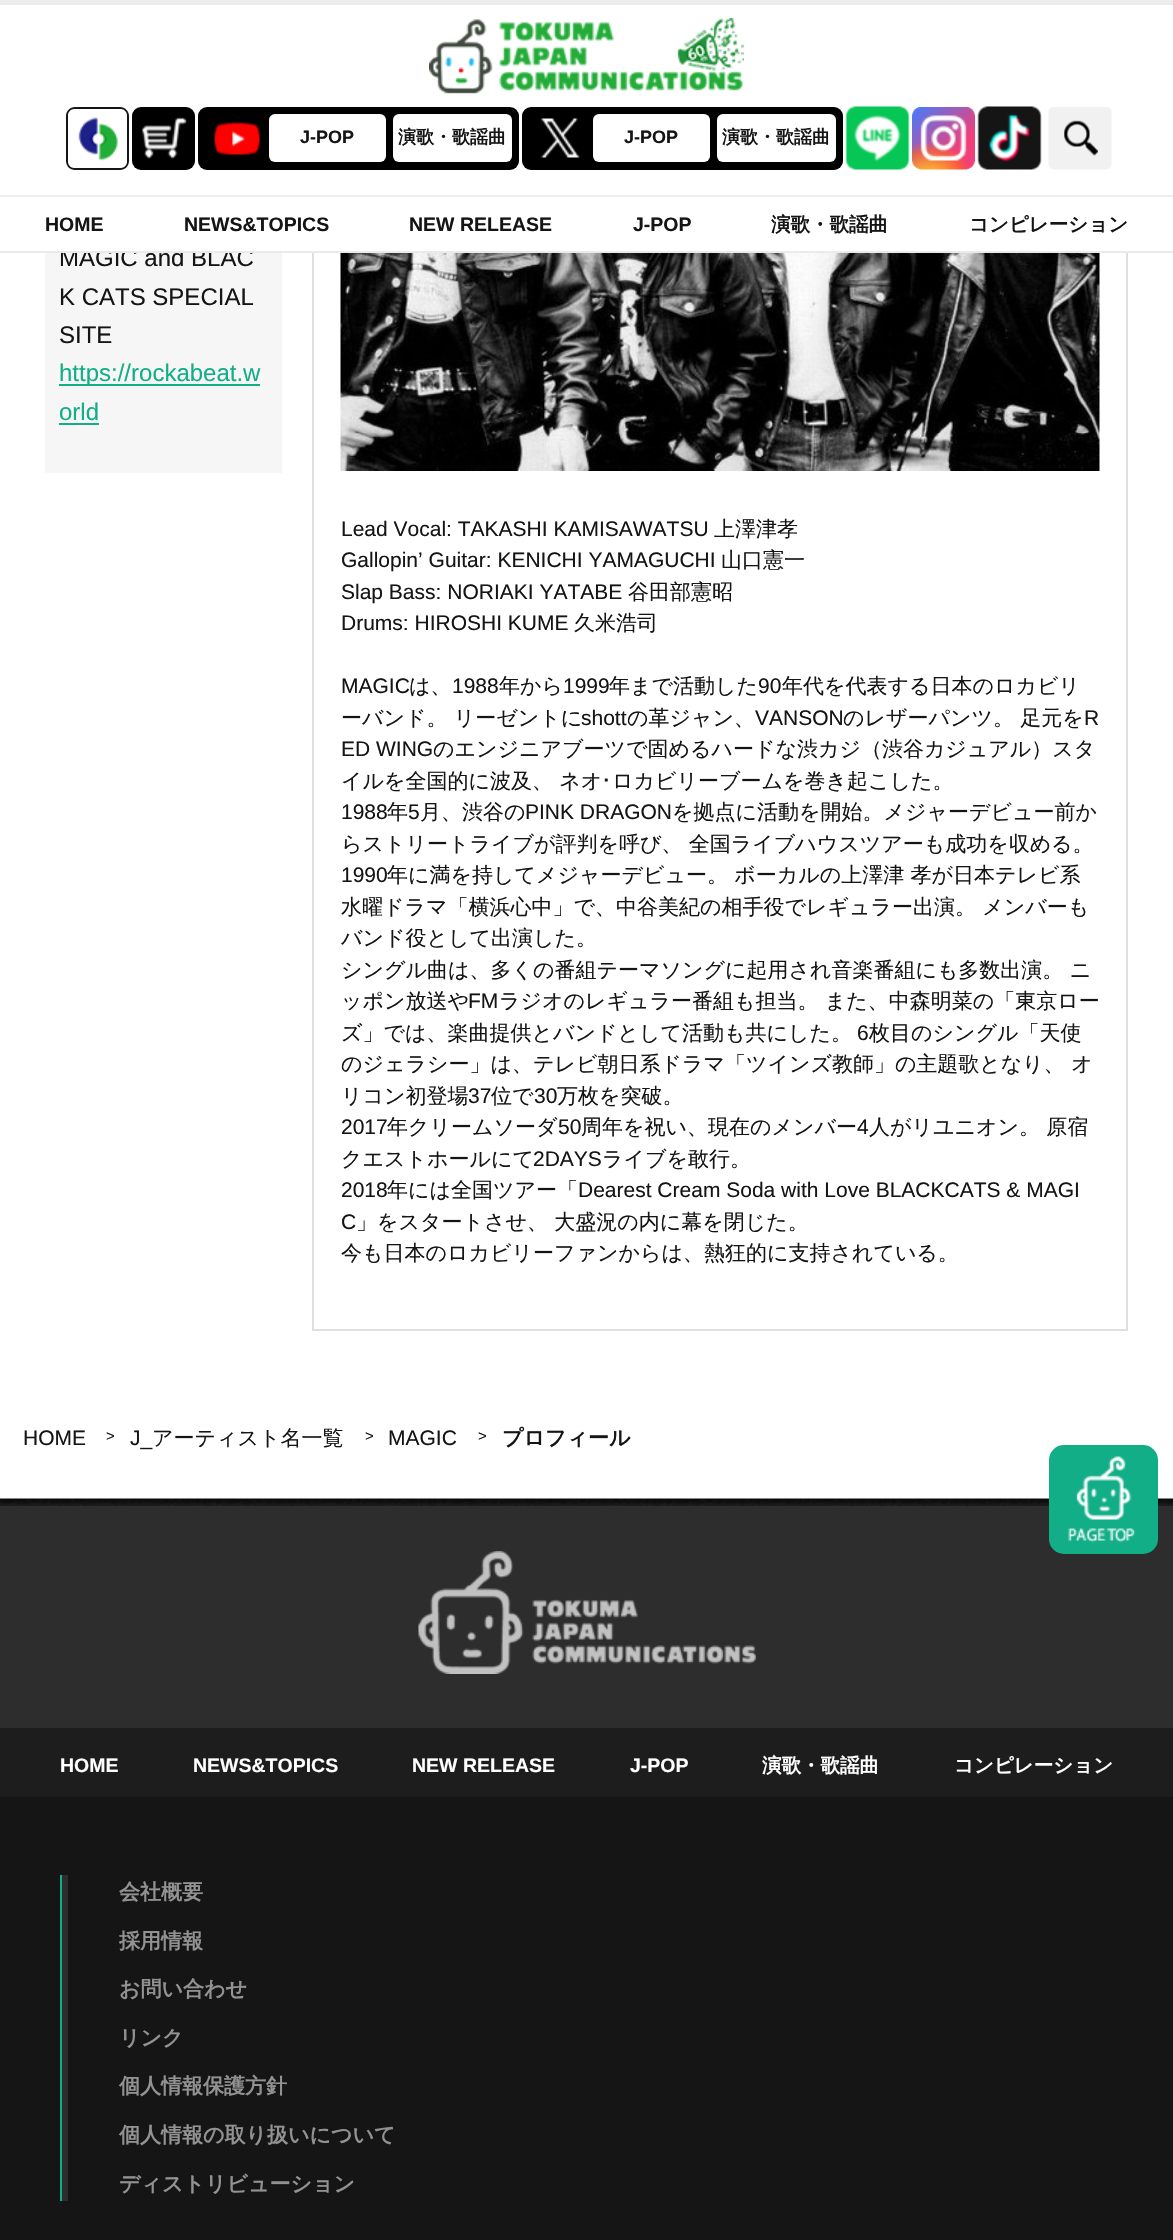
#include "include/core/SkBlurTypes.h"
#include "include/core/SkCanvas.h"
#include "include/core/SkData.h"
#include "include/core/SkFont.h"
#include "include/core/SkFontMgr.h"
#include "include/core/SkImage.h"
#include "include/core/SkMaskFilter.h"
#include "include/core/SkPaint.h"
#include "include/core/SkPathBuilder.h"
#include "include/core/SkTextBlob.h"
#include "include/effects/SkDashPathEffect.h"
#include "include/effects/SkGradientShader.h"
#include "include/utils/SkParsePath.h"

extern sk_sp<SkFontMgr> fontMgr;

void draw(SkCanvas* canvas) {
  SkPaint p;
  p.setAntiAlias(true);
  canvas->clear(SK_ColorWHITE);
  p.setStyle(SkPaint::kStroke_Style);
  p.setStrokeWidth(2);
  p.setColor(SkColorSetRGB(223, 223, 223));
  canvas->drawRect(SkRect::MakeLTRB(313, -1, 1127, 1330), p);
  p.setStyle(SkPaint::kFill_Style);
  p.setColor(SkColorSetRGB(237, 237, 237));
  canvas->drawRect(SkRect::MakeLTRB(0, 0, 1173, 5), p);
  p.setColor(SkColorSetRGB(246, 246, 246));
  canvas->drawRect(SkRect::MakeLTRB(45, 253, 282, 473), p);
  p.setColor(SkColorSetRGB(18, 174, 135));
  canvas->drawRect(SkRect::MakeLTRB(59, 384, 260, 386), p);
  canvas->drawRect(SkRect::MakeLTRB(59, 423, 99, 425), p);
  canvas->drawImageRect(SkImages::DeferredFromEncodedData(SkData::MakeFromFileName("images/10.png")), SkRect::MakeLTRB(340, 253, 1100, 471), SkSamplingOptions());
  canvas->drawImageRect(SkImages::DeferredFromEncodedData(SkData::MakeFromFileName("images/11.png")), SkRect::MakeLTRB(0, 1498, 1173, 1506), SkSamplingOptions());
  p.setColor(SkColorSetRGB(45, 45, 45));
  canvas->drawRect(SkRect::MakeLTRB(0, 1506, 1173, 1728), p);
  p.setColor(SkColorSetRGB(18, 174, 135));
  canvas->drawRoundRect(SkRect::MakeLTRB(1049, 1445, 1158, 1554), 15, 15, p);
  canvas->drawImageRect(SkImages::DeferredFromEncodedData(SkData::MakeFromFileName("images/12.png")), SkRect::MakeLTRB(1067, 1456, 1135, 1543), SkSamplingOptions());
  canvas->drawImageRect(SkImages::DeferredFromEncodedData(SkData::MakeFromFileName("images/13.png")), SkRect::MakeLTRB(418, 1551, 756, 1674), SkSamplingOptions());
  p.setColor(SkColorSetRGB(29, 29, 29));
  canvas->drawRect(SkRect::MakeLTRB(0, 1728, 1173, 1797), p);
  p.setColor(SkColorSetRGB(21, 21, 21));
  canvas->drawRect(SkRect::MakeLTRB(0, 1797, 1173, 2240), p);
  p.setColor(SkColorSetRGB(45, 45, 45));
  canvas->drawRect(SkRect::MakeLTRB(62, 1875, 68, 2201), p);
  p.setColor(SkColorSetRGB(17, 174, 135));
  canvas->drawRect(SkRect::MakeLTRB(60, 1875, 62, 2201), p);
  SkFont font1(fontMgr->matchFamilyStyle("Liberation Sans", SkFontStyle::Normal()), 24);
  font1.setSubpixel(true);
  p.setColor(SkColorSetRGB(21, 21, 21));
  canvas->drawString("MAGIC and BLAC", 59, 266, font1, p);
  p.setColor(SK_ColorWHITE);
  canvas->drawRect(SkRect::MakeLTRB(60, 5, 1128, 251), p);
  SkFont font2(fontMgr->matchFamilyStyle("WenQuanYi Zen Hei", SkFontStyle::Bold()), 19.5f);
  font2.setSubpixel(true);
  p.setColor(SkColorSetRGB(21, 21, 21));
  canvas->drawString("コンピレーション", 969, 231, font2, p);
  canvas->drawString("演歌・歌謡曲", 771, 231, font2, p);
  SkFont font3(fontMgr->matchFamilyStyle("Liberation Sans", SkFontStyle::Bold()), 19.5f);
  font3.setSubpixel(true);
  canvas->drawString("J-POP", 633, 231, font3, p);
  canvas->drawString("NEW RELEASE", 409, 231, font3, p);
  canvas->drawString("NEWS&TOPICS", 184, 231, font3, p);
  canvas->drawString("HOME", 45, 231, font3, p);
  canvas->drawImageRect(SkImages::DeferredFromEncodedData(SkData::MakeFromFileName("images/8.png")), SkRect::MakeLTRB(977, 106, 1042, 170), SkSamplingOptions());
  canvas->drawImageRect(SkImages::DeferredFromEncodedData(SkData::MakeFromFileName("images/7.png")), SkRect::MakeLTRB(912, 107, 975, 170), SkSamplingOptions());
  canvas->drawImageRect(SkImages::DeferredFromEncodedData(SkData::MakeFromFileName("images/6.png")), SkRect::MakeLTRB(845, 106, 910, 170), SkSamplingOptions());
  p.setColor(SK_ColorBLACK);
  canvas->drawRoundRect(SkRect::MakeLTRB(132, 107, 195, 170), 9, 9, p);
  canvas->drawImageRect(SkImages::DeferredFromEncodedData(SkData::MakeFromFileName("images/3.png")), SkRect::MakeLTRB(142, 117, 187, 159), SkSamplingOptions());
  p.setColor(SkColorSetRGB(21, 21, 21));
  canvas->drawPath(SkPathBuilder(SkPathFillType::kEvenOdd).moveTo(75, 107).cubicTo(70, 107, 66, 111, 66, 116).lineTo(66, 161).cubicTo(66, 166, 70, 170, 75, 170).lineTo(120, 170).cubicTo(125, 170, 129, 166, 129, 161).lineTo(129, 116).cubicTo(129, 111, 125, 107, 120, 107).close().moveTo(74, 109).cubicTo(71, 109, 68, 112, 68, 115).lineTo(68, 162).cubicTo(68, 165, 71, 168, 74, 168).lineTo(121, 168).cubicTo(124, 168, 127, 165, 127, 162).lineTo(127, 115).cubicTo(127, 112, 124, 109, 121, 109).close().detach(), p);
  canvas->drawImageRect(SkImages::DeferredFromEncodedData(SkData::MakeFromFileName("images/2.png")), SkRect::MakeLTRB(78, 117, 118, 161), SkSamplingOptions());
  canvas->drawImageRect(SkImages::DeferredFromEncodedData(SkData::MakeFromFileName("images/9.png")), SkRect::MakeLTRB(1048, 107, 1112, 170), SkSamplingOptions());
  p.setColor(SK_ColorBLACK);
  canvas->drawRoundRect(SkRect::MakeLTRB(522, 107, 843, 170), 9, 9, p);
  p.setColor(SK_ColorWHITE);
  canvas->drawRoundRect(SkRect::MakeLTRB(717, 114, 836, 162), 6, 6, p);
  SkFont font4(fontMgr->matchFamilyStyle("WenQuanYi Zen Hei", SkFontStyle::Bold()), 18);
  font4.setSubpixel(true);
  p.setColor(SkColorSetRGB(21, 21, 21));
  canvas->drawString("演歌・歌謡曲", 722, 143, font4, p);
  p.setColor(SK_ColorWHITE);
  canvas->drawRoundRect(SkRect::MakeLTRB(593, 114, 710, 162), 6, 6, p);
  SkFont font5(fontMgr->matchFamilyStyle("Liberation Sans", SkFontStyle::Bold()), 18);
  font5.setSubpixel(true);
  p.setColor(SkColorSetRGB(21, 21, 21));
  canvas->drawString("J-POP", 624, 143, font5, p);
  canvas->drawImageRect(SkImages::DeferredFromEncodedData(SkData::MakeFromFileName("images/5.png")), SkRect::MakeLTRB(541, 118, 580, 158), SkSamplingOptions());
  p.setColor(SK_ColorBLACK);
  canvas->drawRoundRect(SkRect::MakeLTRB(198, 107, 519, 170), 9, 9, p);
  p.setColor(SK_ColorWHITE);
  canvas->drawRoundRect(SkRect::MakeLTRB(393, 114, 512, 162), 6, 6, p);
  p.setColor(SkColorSetRGB(21, 21, 21));
  canvas->drawString("演歌・歌謡曲", 398, 143, font4, p);
  p.setColor(SK_ColorWHITE);
  canvas->drawRoundRect(SkRect::MakeLTRB(269, 114, 386, 162), 6, 6, p);
  p.setColor(SkColorSetRGB(21, 21, 21));
  canvas->drawString("J-POP", 300, 143, font5, p);
  canvas->drawImageRect(SkImages::DeferredFromEncodedData(SkData::MakeFromFileName("images/4.png")), SkRect::MakeLTRB(214, 122, 260, 155), SkSamplingOptions());
  canvas->drawImageRect(SkImages::DeferredFromEncodedData(SkData::MakeFromFileName("images/1.png")), SkRect::MakeLTRB(429, 18, 744, 94), SkSamplingOptions());
  p.setColor(SkColorSetRGB(238, 238, 238));
  canvas->drawRect(SkRect::MakeLTRB(0, 195, 1173, 197), p);
  p.setColor(SkColorSetRGB(234, 234, 234));
  canvas->drawRect(SkRect::MakeLTRB(0, 251, 1173, 253), p);
  p.setColor(SkColorSetRGB(21, 21, 21));
  canvas->drawString("K CATS SPECIAL", 59, 305, font1, p);
  canvas->drawString("SITE", 59, 343, font1, p);
  p.setColor(SkColorSetRGB(18, 174, 135));
  canvas->drawString("https://rockabeat.w", 59, 381, font1, p);
  canvas->drawString("orld", 59, 420, font1, p);
  SkFont font6(fontMgr->matchFamilyStyle("Liberation Sans", SkFontStyle::Normal()), 21);
  font6.setSubpixel(true);
  p.setColor(SkColorSetRGB(21, 21, 21));
  canvas->drawString("Lead Vocal: TAKASHI KAMISAWATSU", 341, 536, font6, p);
  SkFont font7(fontMgr->matchFamilyStyle("WenQuanYi Zen Hei", SkFontStyle(500, SkFontStyle::kNormal_Width, SkFontStyle::kUpright_Slant)), 21);
  font7.setSubpixel(true);
  canvas->drawString("上澤津孝", 714, 536, font7, p);
  canvas->drawString("Gallopin’ Guitar: KENICHI YAMAGUCHI", 341, 567, font6, p);
  canvas->drawString("山口憲一", 721, 567, font7, p);
  canvas->drawString("Slap Bass: NORIAKI YATABE", 341, 599, font6, p);
  canvas->drawString("谷田部憲昭", 628, 599, font7, p);
  canvas->drawString("Drums: HIROSHI KUME", 341, 630, font6, p);
  canvas->drawString("久米浩司", 574, 630, font7, p);
  canvas->drawString("MAGIC", 341, 693, font6, p);
  canvas->drawString("は、", 409, 693, font7, p);
  canvas->drawString("1988", 452, 693, font6, p);
  canvas->drawString("年から", 499, 693, font7, p);
  canvas->drawString("1999", 563, 693, font6, p);
  canvas->drawString("年まで活動した", 609, 693, font7, p);
  canvas->drawString("90", 758, 693, font6, p);
  canvas->drawString("年代を代表する日本のロカビリ", 782, 693, font7, p);
  canvas->drawString("ーバンド。 リーゼントに", 341, 725, font7, p);
  canvas->drawString("shott", 581, 725, font6, p);
  canvas->drawString("の革ジャン、", 627, 725, font7, p);
  canvas->drawString("VANSON", 755, 725, font6, p);
  canvas->drawString("のレザーパンツ。 足元を", 843, 725, font7, p);
  canvas->drawString("R", 1084, 725, font6, p);
  canvas->drawString("ED WING", 341, 756, font6, p);
  canvas->drawString("のエンジニアブーツで固めるハードな渋カジ（渋谷カジュアル）スタ", 433, 756, font7, p);
  canvas->drawString("イルを全国的に波及、 ネオ", 341, 788, font7, p);
  SkFont font8(fontMgr->matchFamilyStyle("IPAPGothic", SkFontStyle::Normal()), 21);
  font8.setSubpixel(true);
  canvas->drawString("･", 601, 788, font8, p);
  canvas->drawString("ロカビリーブームを巻き起こした。", 612, 788, font7, p);
  canvas->drawString("1988", 341, 819, font6, p);
  canvas->drawString("年", 387, 819, font7, p);
  canvas->drawString("5", 408, 819, font6, p);
  canvas->drawString("月、渋谷の", 420, 819, font7, p);
  canvas->drawString("PINK DRAGON", 525, 819, font6, p);
  canvas->drawString("を拠点に活動を開始。メジャーデビュー前か", 672, 819, font7, p);
  canvas->drawString("らストリートライブが評判を呼び、 全国ライブハウスツアーも成功を収める。", 341, 851, font7, p);
  canvas->drawString("1990", 341, 882, font6, p);
  canvas->drawString("年に満を持してメジャーデビュー。 ボーカルの上澤津 孝が日本テレビ系", 387, 882, font7, p);
  canvas->drawString("水曜ドラマ「横浜心中」で、中谷美紀の相手役でレギュラー出演。 メンバーも", 341, 914, font7, p);
  canvas->drawString("バンド役として出演した。", 341, 945, font7, p);
  canvas->drawString("シングル曲は、多くの番組テーマソングに起用され音楽番組にも多数出演。 ニ", 341, 977, font7, p);
  canvas->drawString("ッポン放送や", 341, 1008, font7, p);
  canvas->drawString("FM", 468, 1008, font6, p);
  canvas->drawString("ラジオのレギュラー番組も担当。 また、中森明菜の「東京ロー", 499, 1008, font7, p);
  canvas->drawString("ズ」では、楽曲提供とバンドとして活動も共にした。", 341, 1040, font7, p);
  canvas->drawString("6", 857, 1040, font6, p);
  canvas->drawString("枚目のシングル「天使", 869, 1040, font7, p);
  canvas->drawString("のジェラシー」は、テレビ朝日系ドラマ「ツインズ教師」の主題歌となり、 オ", 341, 1071, font7, p);
  canvas->drawString("リコン初登場", 341, 1103, font7, p);
  canvas->drawString("37", 468, 1103, font6, p);
  canvas->drawString("位で", 491, 1103, font7, p);
  canvas->drawString("30", 534, 1103, font6, p);
  canvas->drawString("万枚を突破。", 557, 1103, font7, p);
  canvas->drawString("2017", 341, 1134, font6, p);
  canvas->drawString("年クリームソーダ", 387, 1134, font7, p);
  canvas->drawString("50", 558, 1134, font6, p);
  canvas->drawString("周年を祝い、現在のメンバー", 581, 1134, font7, p);
  canvas->drawString("4", 857, 1134, font6, p);
  canvas->drawString("人がリユニオン。 原宿", 869, 1134, font7, p);
  canvas->drawString("クエストホールにて", 341, 1166, font7, p);
  canvas->drawString("2DAYS", 533, 1166, font6, p);
  canvas->drawString("ライブを敢行。", 602, 1166, font7, p);
  canvas->drawString("2018", 341, 1197, font6, p);
  canvas->drawString("年には全国ツアー「", 387, 1197, font7, p);
  canvas->drawString("Dearest Cream Soda with Love BLACKCATS & MAGI", 578, 1197, font6, p);
  canvas->drawString("C", 341, 1229, font6, p);
  canvas->drawString("」をスタートさせ、 大盛況の内に幕を閉じた。", 356, 1229, font7, p);
  canvas->drawString("今も日本のロカビリーファンからは、熱狂的に支持されている。", 341, 1260, font7, p);
  canvas->drawString("HOME", 23, 1445, font6, p);
  SkFont font9(fontMgr->matchFamilyStyle("Liberation Sans", SkFontStyle::Normal()), 15);
  font9.setSubpixel(true);
  canvas->drawString(">", 106, 1441, font9, p);
  canvas->drawString("J_", 130, 1445, font6, p);
  canvas->drawString("アーティスト名一覧", 152, 1445, font7, p);
  canvas->drawString(">", 365, 1441, font9, p);
  canvas->drawString("MAGIC", 388, 1445, font6, p);
  canvas->drawString(">", 478, 1441, font9, p);
  SkFont font10(fontMgr->matchFamilyStyle("WenQuanYi Zen Hei", SkFontStyle::Bold()), 21);
  font10.setSubpixel(true);
  canvas->drawString("プロフィール", 502, 1445, font10, p);
  p.setColor(SK_ColorWHITE);
  canvas->drawString("HOME", 60, 1772, font3, p);
  canvas->drawString("NEWS&TOPICS", 193, 1772, font3, p);
  canvas->drawString("NEW RELEASE", 412, 1772, font3, p);
  canvas->drawString("J-POP", 630, 1772, font3, p);
  canvas->drawString("演歌・歌謡曲", 762, 1772, font2, p);
  canvas->drawString("コンピレーション", 954, 1772, font2, p);
  p.setColor(SkColorSetRGB(146, 146, 146));
  canvas->drawString("会社概要", 119, 1899, font10, p);
  canvas->drawString("採用情報", 119, 1948, font10, p);
  canvas->drawString("お問い合わせ", 119, 1996, font10, p);
  canvas->drawString("リンク", 119, 2045, font10, p);
  canvas->drawString("個人情報保護方針", 119, 2093, font10, p);
  canvas->drawString("個人情報の取り扱いについて", 119, 2142, font10, p);
  canvas->drawString("ディストリビューション", 119, 2191, font10, p);
}
